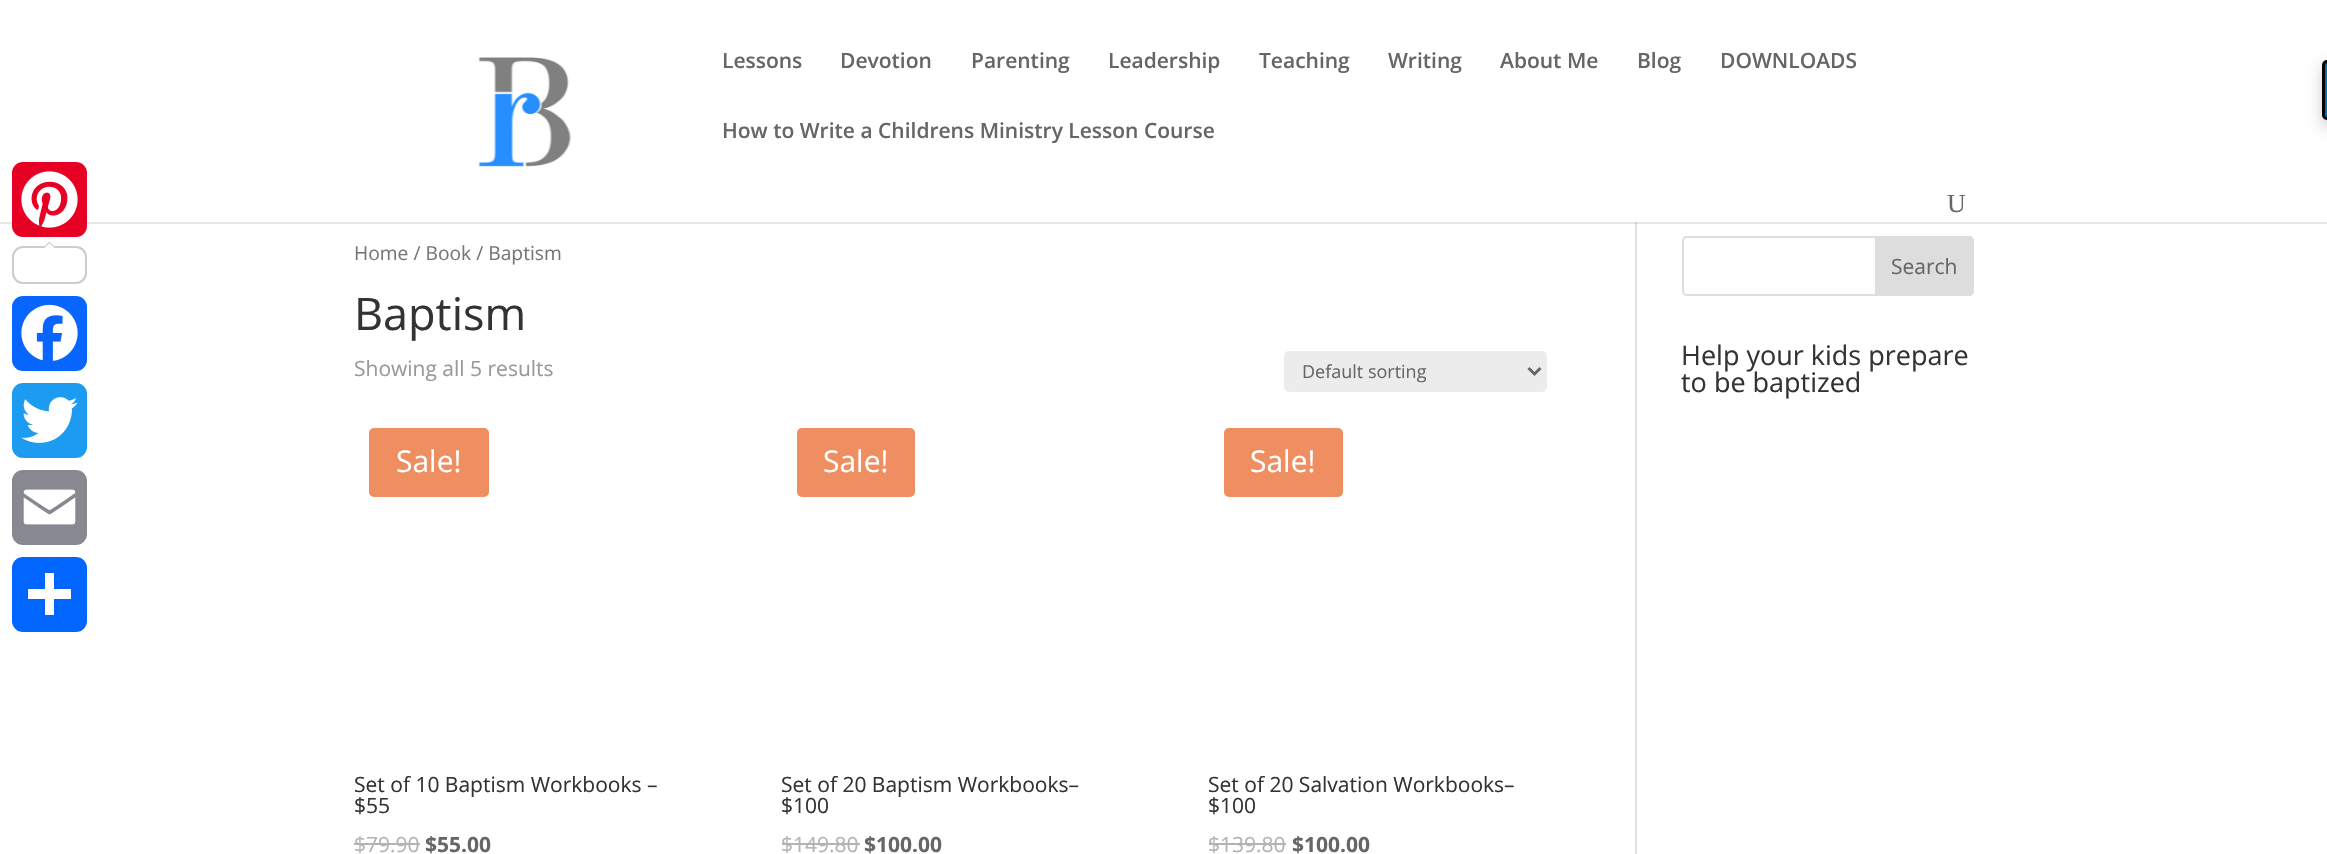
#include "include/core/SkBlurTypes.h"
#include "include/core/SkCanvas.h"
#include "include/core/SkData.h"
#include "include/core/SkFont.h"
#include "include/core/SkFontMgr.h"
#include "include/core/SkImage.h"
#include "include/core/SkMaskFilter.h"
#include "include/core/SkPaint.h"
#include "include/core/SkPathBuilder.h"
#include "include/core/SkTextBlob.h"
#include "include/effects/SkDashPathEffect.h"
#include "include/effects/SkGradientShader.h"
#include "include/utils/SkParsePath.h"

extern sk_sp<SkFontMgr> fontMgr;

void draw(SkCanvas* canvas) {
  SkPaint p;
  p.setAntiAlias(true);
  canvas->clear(SK_ColorWHITE);
  p.setColor(SkColorSetRGB(230, 230, 230));
  canvas->drawRect(SkRect::MakeLTRB(0, 222, 2327, 224), p);
  p.setColor(SkColorSetRGB(230, 0, 35));
  canvas->drawRoundRect(SkRect::MakeLTRB(12, 162, 87, 237), 11, 11, p);
  canvas->drawImageRect(SkImages::DeferredFromEncodedData(SkData::MakeFromFileName("images/1.png")), SkRect::MakeLTRB(21, 171, 78, 228), SkSamplingOptions());
  p.setStyle(SkPaint::kStroke_Style);
  p.setStrokeWidth(2);
  p.setColor(SkColorSetRGB(204, 204, 204));
  canvas->drawRoundRect(SkRect::MakeLTRB(13, 247, 86, 283), 10, 10, p);
  p.setStyle(SkPaint::kFill_Style);
  canvas->drawPath(SkPathBuilder().moveTo(55.5f, 247.5f).lineTo(43.5f, 247.5f).lineTo(49.5f, 241.5f).close().detach(), p);
  p.setColor(SK_ColorWHITE);
  canvas->drawPath(SkPathBuilder().moveTo(55.5f, 249).lineTo(43.5f, 249).lineTo(49.5f, 243).close().detach(), p);
  p.setColor(SkColorSetRGB(8, 102, 255));
  canvas->drawRoundRect(SkRect::MakeLTRB(12, 296, 87, 371), 11, 11, p);
  canvas->drawImageRect(SkImages::DeferredFromEncodedData(SkData::MakeFromFileName("images/2.png")), SkRect::MakeLTRB(21, 304, 78, 361), SkSamplingOptions());
  p.setColor(SkColorSetRGB(29, 155, 240));
  canvas->drawRoundRect(SkRect::MakeLTRB(12, 383, 87, 458), 11, 11, p);
  canvas->drawImageRect(SkImages::DeferredFromEncodedData(SkData::MakeFromFileName("images/3.png")), SkRect::MakeLTRB(21, 397, 78, 443), SkSamplingOptions());
  p.setColor(SkColorSetRGB(136, 137, 144));
  canvas->drawRoundRect(SkRect::MakeLTRB(12, 470, 87, 545), 11, 11, p);
  canvas->drawImageRect(SkImages::DeferredFromEncodedData(SkData::MakeFromFileName("images/4.png")), SkRect::MakeLTRB(23, 489, 76, 525), SkSamplingOptions());
  p.setColor(SkColorSetRGB(1, 102, 255));
  canvas->drawRoundRect(SkRect::MakeLTRB(12, 557, 87, 632), 11, 11, p);
  p.setColor(SK_ColorWHITE);
  canvas->drawRect(SkRect::MakeLTRB(45, 573, 54, 615), p);
  canvas->drawRect(SkRect::MakeLTRB(28, 589, 71, 599), p);
  canvas->drawImageRect(SkImages::DeferredFromEncodedData(SkData::MakeFromFileName("images/5.png")), SkRect::MakeLTRB(478, 57, 571, 167), SkSamplingOptions());
  p.setColor(SkColorSetRGB(226, 226, 226));
  canvas->drawRect(SkRect::MakeLTRB(1635, 224, 1637, 854), p);
  p.setColor(SkColorSetRGB(203, 203, 203));
  canvas->drawRect(SkRect::MakeLTRB(1635, 222, 1637, 224), p);
  p.setColor(SkColorSetRGB(236, 236, 236));
  canvas->drawRoundRect(SkRect::MakeLTRB(1284, 351, 1547, 392), 5, 5, p);
  p.setStyle(SkPaint::kStroke_Style);
  p.setStrokeWidth(3);
  p.setColor(SkColorSetRGB(102, 102, 102));
  canvas->drawPath(SkPathBuilder().moveTo(1528.5f, 368).lineTo(1534.5f, 374).lineTo(1540.5f, 368).detach(), p);
  p.setStyle(SkPaint::kFill_Style);
  p.setColor(SkColorSetRGB(239, 143, 97));
  canvas->drawRoundRect(SkRect::MakeLTRB(369, 428, 489, 497), 5, 5, p);
  p.setColor(SkColorSetRGB(179, 179, 179));
  canvas->drawRect(SkRect::MakeLTRB(354, 843, 420, 845), p);
  p.setColor(SkColorSetRGB(239, 143, 97));
  canvas->drawRoundRect(SkRect::MakeLTRB(797, 428, 915, 497), 5, 5, p);
  p.setColor(SkColorSetRGB(179, 179, 179));
  canvas->drawRect(SkRect::MakeLTRB(782, 843, 860, 845), p);
  p.setColor(SkColorSetRGB(239, 143, 97));
  canvas->drawRoundRect(SkRect::MakeLTRB(1224, 428, 1343, 497), 5, 5, p);
  p.setColor(SkColorSetRGB(179, 179, 179));
  canvas->drawRect(SkRect::MakeLTRB(1209, 843, 1286, 845), p);
  p.setStyle(SkPaint::kStroke_Style);
  p.setStrokeWidth(2);
  p.setColor(SkColorSetRGB(221, 221, 221));
  canvas->drawRoundRect(SkRect::MakeLTRB(1683, 237, 1973, 295), 4, 4, p);
  p.setStyle(SkPaint::kFill_Style);
  canvas->drawPath(SkPathBuilder().moveTo(1876, 237).lineTo(1969, 237).cubicTo(1971, 237, 1973, 239, 1973, 241).lineTo(1973, 291).cubicTo(1973, 293, 1971, 295, 1969, 295).lineTo(1876, 295).close().detach(), p);
  p.setStyle(SkPaint::kStroke_Style);
  canvas->drawPath(SkPathBuilder().moveTo(1876, 237).lineTo(1969, 237).cubicTo(1971, 237, 1973, 239, 1973, 241).lineTo(1973, 291).cubicTo(1973, 293, 1971, 295, 1969, 295).lineTo(1876, 295).close().detach(), p);
  p.setStyle(SkPaint::kFill_Style);
  p.setColor(SkColorSetARGB(51, 0, 0, 0));
  p.setMaskFilter(SkMaskFilter::MakeBlur(kNormal_SkBlurStyle, 7.5f));
  canvas->drawRoundRect(SkRect::MakeLTRB(2322, 66, 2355, 126), 5, 5, p);
  p.setMaskFilter(nullptr);
  p.setColor(SkColorSetRGB(0, 115, 183));
  canvas->drawPath(SkPathBuilder().moveTo(2327, 61.5f).lineTo(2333.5f, 61.5f).lineTo(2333.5f, 118.5f).lineTo(2327, 118.5f).cubicTo(2325, 118.5f, 2323.5f, 117, 2323.5f, 115).lineTo(2323.5f, 65).cubicTo(2323.5f, 63, 2325, 61.5f, 2327, 61.5f).close().detach(), p);
  p.setStyle(SkPaint::kStroke_Style);
  p.setStrokeWidth(3);
  p.setColor(SK_ColorBLACK);
  canvas->drawPath(SkPathBuilder().moveTo(2327, 61.5f).lineTo(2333.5f, 61.5f).lineTo(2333.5f, 118.5f).lineTo(2327, 118.5f).cubicTo(2325, 118.5f, 2323.5f, 117, 2323.5f, 115).lineTo(2323.5f, 65).cubicTo(2323.5f, 63, 2325, 61.5f, 2327, 61.5f).close().detach(), p);
  SkFont font1(fontMgr->matchFamilyStyle("Open Sans", SkFontStyle(600, SkFontStyle::kNormal_Width, SkFontStyle::kUpright_Slant)), 21);
  font1.setSubpixel(true);
  p.setStyle(SkPaint::kFill_Style);
  p.setColor(SkColorSetRGB(102, 102, 102));
  canvas->drawString("Lessons", 722, 68, font1, p);
  canvas->drawString("Devotion", 840, 68, font1, p);
  canvas->drawString("Parenting", 971, 68, font1, p);
  canvas->drawString("Leadership", 1108, 68, font1, p);
  canvas->drawString("Teaching", 1259, 68, font1, p);
  canvas->drawString("Writing", 1388, 68, font1, p);
  canvas->drawString("About Me", 1500, 68, font1, p);
  canvas->drawString("Blog", 1637, 68, font1, p);
  canvas->drawString("DOWNLOADS", 1720, 68, font1, p);
  canvas->drawString("How to Write a Childrens Ministry Lesson Course", 722, 138, font1, p);
  SkFont font2(fontMgr->matchFamilyStyle("Liberation Serif", SkFontStyle::Normal()), 26);
  font2.setSubpixel(true);
  canvas->drawString("U", 1947, 212, font2, p);
  SkFont font3(fontMgr->matchFamilyStyle("Open Sans", SkFontStyle::Normal()), 19.25f);
  font3.setSubpixel(true);
  p.setColor(SkColorSetRGB(118, 118, 118));
  canvas->drawString("Home / Book / Baptism", 354, 260, font3, p);
  SkFont font4(fontMgr->matchFamilyStyle("Open Sans", SkFontStyle::Normal()), 45);
  font4.setSubpixel(true);
  p.setColor(SkColorSetRGB(51, 51, 51));
  canvas->drawString("Baptism", 354, 330, font4, p);
  SkFont font5(fontMgr->matchFamilyStyle("Open Sans", SkFontStyle::Normal()), 21);
  font5.setSubpixel(true);
  p.setColor(SkColorSetRGB(153, 153, 153));
  canvas->drawString("Showing all 5 results", 354, 376, font5, p);
  SkFont font6(fontMgr->matchFamilyStyle("Open Sans", SkFontStyle::Normal()), 18);
  font6.setSubpixel(true);
  p.setColor(SkColorSetRGB(102, 102, 102));
  canvas->drawString("Default sorting", 1302, 378, font6, p);
  SkFont font7(fontMgr->matchFamilyStyle("Open Sans", SkFontStyle::Normal()), 30);
  font7.setSubpixel(true);
  p.setColor(SK_ColorWHITE);
  canvas->drawString("Sale!", 396, 472, font7, p);
  p.setColor(SkColorSetRGB(51, 51, 51));
  canvas->drawString("Set of 10 Baptism Workbooks –", 354, 792, font5, p);
  canvas->drawString("$55", 354, 813, font5, p);
  p.setColor(SkColorSetRGB(179, 179, 179));
  canvas->drawString("$79.90", 354, 852, font5, p);
  SkFont font8(fontMgr->matchFamilyStyle("Open Sans", SkFontStyle::Bold()), 21);
  font8.setSubpixel(true);
  p.setColor(SkColorSetRGB(102, 102, 102));
  canvas->drawString("$55.00", 425, 852, font8, p);
  p.setColor(SK_ColorWHITE);
  canvas->drawString("Sale!", 823, 472, font7, p);
  p.setColor(SkColorSetRGB(51, 51, 51));
  canvas->drawString("Set of 20 Baptism Workbooks–", 781, 792, font5, p);
  canvas->drawString("$100", 781, 813, font5, p);
  p.setColor(SkColorSetRGB(179, 179, 179));
  canvas->drawString("$149.80", 781, 852, font5, p);
  p.setColor(SkColorSetRGB(102, 102, 102));
  canvas->drawString("$100.00", 864, 852, font8, p);
  p.setColor(SK_ColorWHITE);
  canvas->drawString("Sale!", 1250, 472, font7, p);
  p.setColor(SkColorSetRGB(51, 51, 51));
  canvas->drawString("Set of 20 Salvation Workbooks–", 1208, 792, font5, p);
  canvas->drawString("$100", 1208, 813, font5, p);
  p.setColor(SkColorSetRGB(179, 179, 179));
  canvas->drawString("$139.80", 1208, 852, font5, p);
  p.setColor(SkColorSetRGB(102, 102, 102));
  canvas->drawString("$100.00", 1292, 852, font8, p);
  canvas->drawString("Search", 1891, 274, font5, p);
  SkFont font9(fontMgr->matchFamilyStyle("Open Sans", SkFontStyle::Normal()), 27);
  font9.setSubpixel(true);
  p.setColor(SkColorSetRGB(51, 51, 51));
  canvas->drawString("Help your kids prepare", 1681, 365, font9, p);
  canvas->drawString("to be baptized", 1681, 392, font9, p);
}
